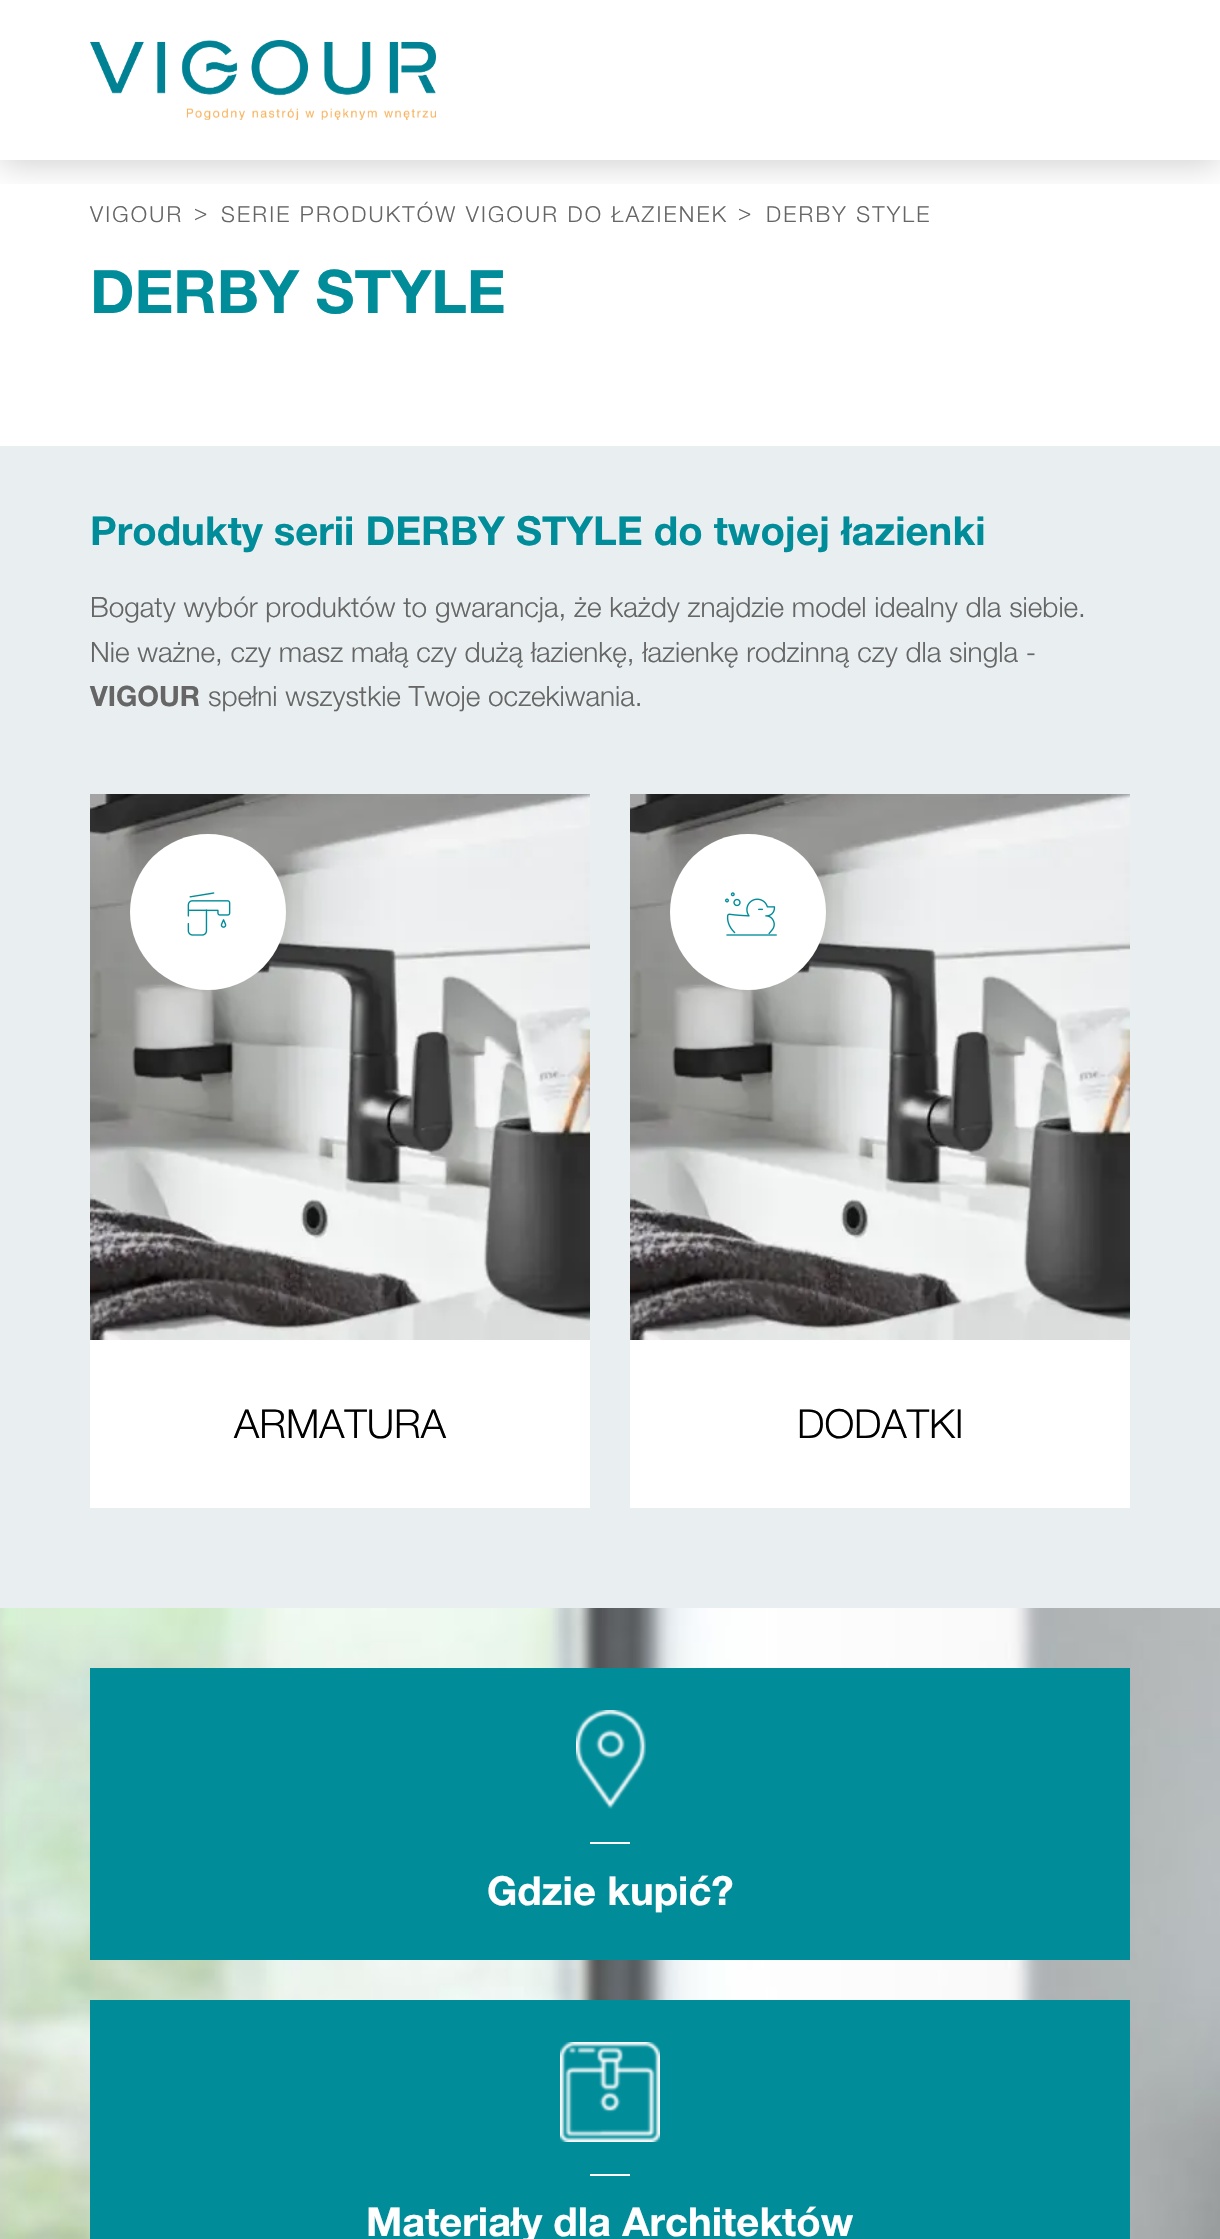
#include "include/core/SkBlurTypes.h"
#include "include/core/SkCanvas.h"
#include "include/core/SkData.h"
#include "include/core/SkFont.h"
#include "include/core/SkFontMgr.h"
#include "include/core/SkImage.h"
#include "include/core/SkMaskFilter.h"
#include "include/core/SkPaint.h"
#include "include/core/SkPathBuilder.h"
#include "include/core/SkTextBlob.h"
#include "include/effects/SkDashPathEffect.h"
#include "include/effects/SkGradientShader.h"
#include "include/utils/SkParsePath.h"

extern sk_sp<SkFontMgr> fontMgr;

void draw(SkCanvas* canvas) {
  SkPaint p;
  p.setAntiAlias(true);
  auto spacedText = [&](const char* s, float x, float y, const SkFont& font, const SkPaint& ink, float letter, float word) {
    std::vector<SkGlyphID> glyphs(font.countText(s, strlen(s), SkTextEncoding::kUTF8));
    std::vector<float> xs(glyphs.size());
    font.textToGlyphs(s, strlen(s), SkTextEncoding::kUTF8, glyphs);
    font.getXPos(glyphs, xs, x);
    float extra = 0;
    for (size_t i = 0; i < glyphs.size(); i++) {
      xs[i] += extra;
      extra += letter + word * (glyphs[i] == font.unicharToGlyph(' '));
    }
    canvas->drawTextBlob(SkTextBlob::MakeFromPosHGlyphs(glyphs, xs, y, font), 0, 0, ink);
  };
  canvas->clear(SK_ColorWHITE);
  canvas->save();
  canvas->clipRect(SkRect::MakeLTRB(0, 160, 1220, 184));
  p.setColor(SkColorSetARGB(48, 0, 0, 0));
  p.setMaskFilter(SkMaskFilter::MakeBlur(kNormal_SkBlurStyle, 16));
  canvas->drawRect(SkRect::MakeLTRB(0, 4, 1220, 164), p);
  p.setMaskFilter(nullptr);
  canvas->restore();
  canvas->drawImageRect(SkImages::DeferredFromEncodedData(SkData::MakeFromFileName("images/1.png")), SkRect::MakeLTRB(90, 40, 436, 120), SkSamplingOptions());
  p.setColor(SkColorSetRGB(233, 239, 241));
  canvas->drawRect(SkRect::MakeLTRB(0, 446, 1220, 1608), p);
  canvas->drawImageRect(SkImages::DeferredFromEncodedData(SkData::MakeFromFileName("images/2.png")), SkRect::MakeLTRB(90, 794, 590, 1340), SkSamplingOptions());
  p.setColor(SK_ColorWHITE);
  canvas->drawCircle(208, 912, 78, p);
  canvas->drawImageRect(SkImages::DeferredFromEncodedData(SkData::MakeFromFileName("images/3.png")), SkRect::MakeLTRB(187, 892, 231, 936), SkSamplingOptions());
  canvas->drawRect(SkRect::MakeLTRB(90, 1340, 590, 1508), p);
  canvas->drawImageRect(SkImages::DeferredFromEncodedData(SkData::MakeFromFileName("images/4.png")), SkRect::MakeLTRB(630, 794, 1130, 1340), SkSamplingOptions());
  canvas->drawCircle(748, 912, 78, p);
  canvas->drawImageRect(SkImages::DeferredFromEncodedData(SkData::MakeFromFileName("images/5.png")), SkRect::MakeLTRB(725, 892, 777, 936), SkSamplingOptions());
  canvas->drawRect(SkRect::MakeLTRB(630, 1340, 1130, 1508), p);
  canvas->drawImageRect(SkImages::DeferredFromEncodedData(SkData::MakeFromFileName("images/6.png")), SkRect::MakeLTRB(0, 1608, 1220, 2239), SkSamplingOptions());
  p.setColor(SkColorSetRGB(0, 140, 153));
  canvas->drawRect(SkRect::MakeLTRB(90, 1668, 1130, 1960), p);
  canvas->drawImageRect(SkImages::DeferredFromEncodedData(SkData::MakeFromFileName("images/7.png")), SkRect::MakeLTRB(576, 1710, 646, 1809), SkSamplingOptions());
  p.setColor(SK_ColorWHITE);
  canvas->drawRect(SkRect::MakeLTRB(590, 1842, 630, 1844), p);
  p.setColor(SkColorSetRGB(0, 140, 153));
  canvas->drawRect(SkRect::MakeLTRB(90, 2000, 1130, 2239), p);
  canvas->drawImageRect(SkImages::DeferredFromEncodedData(SkData::MakeFromFileName("images/8.png")), SkRect::MakeLTRB(560, 2042, 660, 2142), SkSamplingOptions());
  p.setColor(SK_ColorWHITE);
  canvas->drawRect(SkRect::MakeLTRB(590, 2174, 630, 2176), p);
  SkFont font1(fontMgr->matchFamilyStyle("Helvetica Neue", SkFontStyle(300, SkFontStyle::kNormal_Width, SkFontStyle::kUpright_Slant)), 22);
  font1.setSubpixel(true);
  p.setColor(SkColorSetRGB(102, 102, 102));
  spacedText("VIGOUR", 90, 222, font1, p, 2.2f, 0);
  spacedText(">", 194, 220, font1, p, 2.2f, 0);
  spacedText("SERIE PRODUKTÓW VIGOUR DO ŁAZIENEK", 221, 222, font1, p, 2.2f, 0);
  spacedText(">", 738, 220, font1, p, 2.2f, 0);
  spacedText("DERBY STYLE", 766, 222, font1, p, 2.2f, 0);
  SkFont font2(fontMgr->matchFamilyStyle("Helvetica Neue", SkFontStyle::Bold()), 60);
  font2.setSubpixel(true);
  p.setColor(SkColorSetRGB(0, 140, 153));
  canvas->drawString("DERBY STYLE", 90, 313, font2, p);
  SkFont font3(fontMgr->matchFamilyStyle("Helvetica Neue", SkFontStyle::Bold()), 40);
  font3.setSubpixel(true);
  canvas->drawString("Produkty serii DERBY STYLE do twojej łazienki", 90, 545, font3, p);
  SkFont font4(fontMgr->matchFamilyStyle("Helvetica Neue", SkFontStyle(300, SkFontStyle::kNormal_Width, SkFontStyle::kUpright_Slant)), 28);
  font4.setSubpixel(true);
  p.setColor(SkColorSetRGB(102, 102, 102));
  canvas->drawString("Bogaty wybór produktów to gwarancja, że każdy znajdzie model idealny dla siebie.", 90, 617, font4, p);
  canvas->drawString("Nie ważne, czy masz małą czy dużą łazienkę, łazienkę rodzinną czy dla singla -", 90, 662, font4, p);
  SkFont font5(fontMgr->matchFamilyStyle("Helvetica Neue", SkFontStyle::Bold()), 28);
  font5.setSubpixel(true);
  canvas->drawString("VIGOUR", 90, 706, font5, p);
  canvas->drawString("spełni wszystkie Twoje oczekiwania.", 208, 706, font4, p);
  SkFont font6(fontMgr->matchFamilyStyle("Helvetica Neue", SkFontStyle(300, SkFontStyle::kNormal_Width, SkFontStyle::kUpright_Slant)), 40);
  font6.setSubpixel(true);
  p.setColor(SK_ColorBLACK);
  canvas->drawString("ARMATURA", 234, 1438, font6, p);
  canvas->drawString("DODATKI", 797, 1438, font6, p);
  p.setColor(SK_ColorWHITE);
  canvas->drawString("Gdzie kupić?", 487, 1905, font3, p);
  canvas->drawString("Materiały dla Architektów", 366, 2236, font3, p);
}
